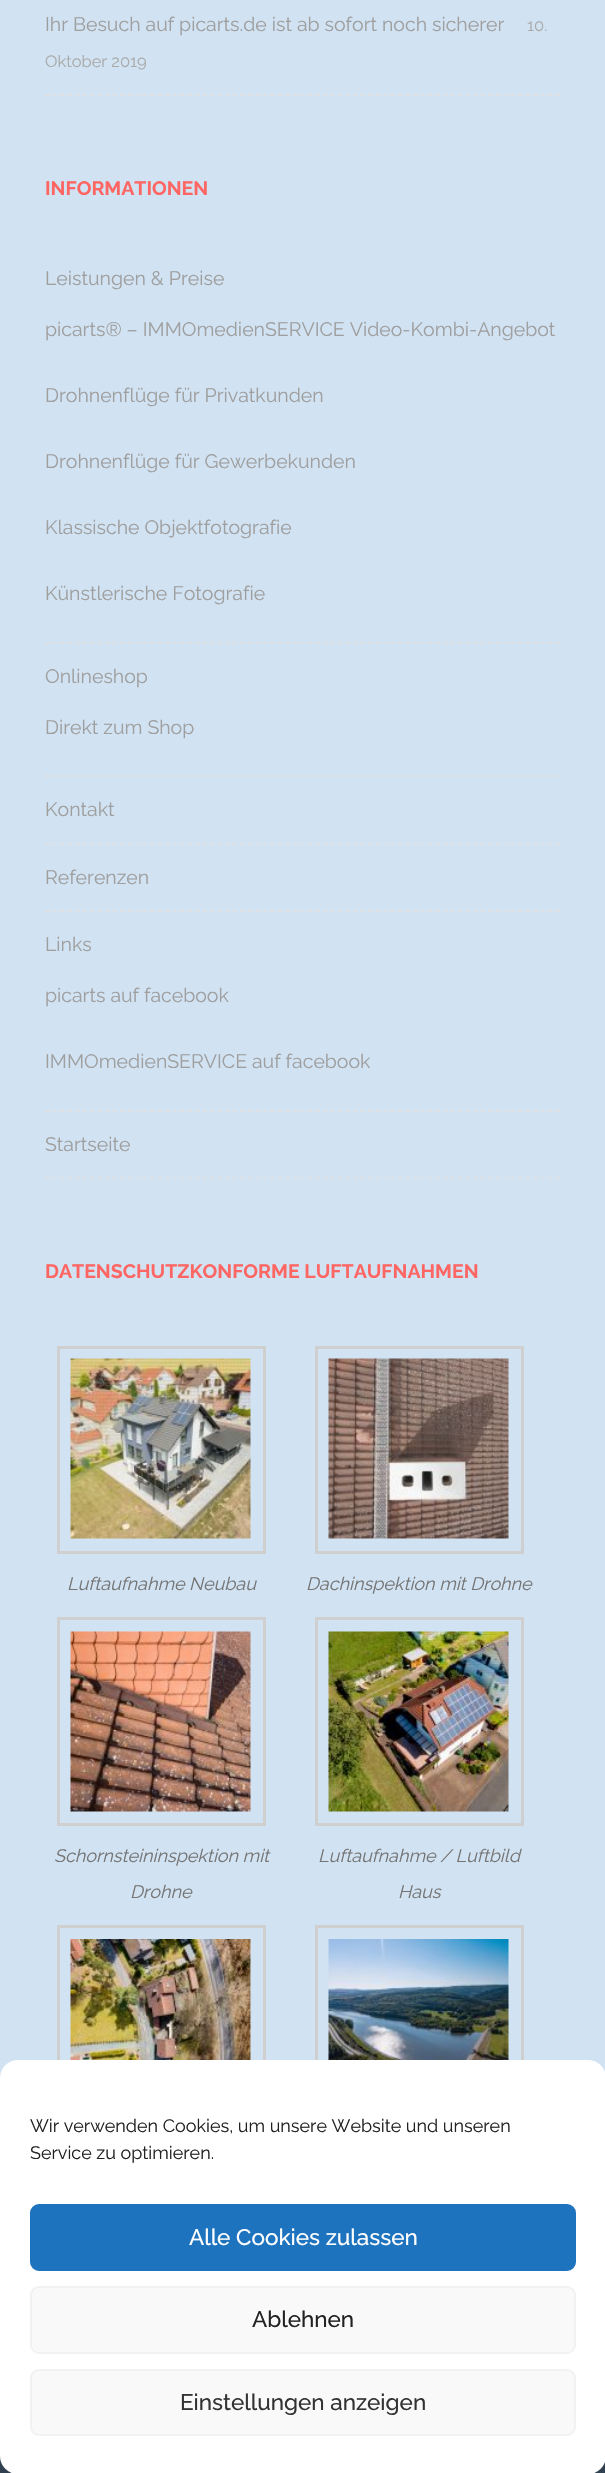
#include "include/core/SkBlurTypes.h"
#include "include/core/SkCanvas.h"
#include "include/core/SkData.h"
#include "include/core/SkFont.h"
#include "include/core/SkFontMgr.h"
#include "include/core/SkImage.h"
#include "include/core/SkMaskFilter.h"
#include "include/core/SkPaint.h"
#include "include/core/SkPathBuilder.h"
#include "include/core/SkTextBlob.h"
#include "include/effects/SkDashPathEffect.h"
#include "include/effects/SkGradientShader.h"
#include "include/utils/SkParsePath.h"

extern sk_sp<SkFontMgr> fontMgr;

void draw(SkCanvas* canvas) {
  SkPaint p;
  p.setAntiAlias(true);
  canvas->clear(SkColorSetRGB(209, 226, 242));
  p.setStyle(SkPaint::kStroke_Style);
  p.setStrokeWidth(1.5f);
  p.setColor(SkColorSetRGB(227, 227, 227));
  p.setPathEffect(SkDashPathEffect::Make({{4.5f, 3.01f}}, 0));
  canvas->drawPath(SkPathBuilder().moveTo(45, 95).lineTo(561, 95).detach(), p);
  p.setPathEffect(nullptr);
  p.setPathEffect(SkDashPathEffect::Make({{4.5f, 3.01f}}, 0));
  canvas->drawPath(SkPathBuilder().moveTo(45, 643).lineTo(561, 643).detach(), p);
  p.setPathEffect(nullptr);
  p.setPathEffect(SkDashPathEffect::Make({{4.5f, 3.01f}}, 0));
  canvas->drawPath(SkPathBuilder().moveTo(45, 776).lineTo(561, 776).detach(), p);
  p.setPathEffect(nullptr);
  p.setPathEffect(SkDashPathEffect::Make({{4.5f, 3.01f}}, 0));
  canvas->drawPath(SkPathBuilder().moveTo(45, 844).lineTo(561, 844).detach(), p);
  p.setPathEffect(nullptr);
  p.setPathEffect(SkDashPathEffect::Make({{4.5f, 3.01f}}, 0));
  canvas->drawPath(SkPathBuilder().moveTo(45, 911).lineTo(561, 911).detach(), p);
  p.setPathEffect(nullptr);
  p.setPathEffect(SkDashPathEffect::Make({{4.5f, 3.01f}}, 0));
  canvas->drawPath(SkPathBuilder().moveTo(45, 1111).lineTo(561, 1111).detach(), p);
  p.setPathEffect(nullptr);
  p.setPathEffect(SkDashPathEffect::Make({{4.5f, 3.01f}}, 0));
  canvas->drawPath(SkPathBuilder().moveTo(45, 1178).lineTo(561, 1178).detach(), p);
  p.setPathEffect(nullptr);
  p.setStrokeWidth(3);
  p.setColor(SkColorSetRGB(207, 207, 207));
  canvas->drawRect(SkRect::MakeLTRB(58.5f, 1347.5f, 264.5f, 1552.5f), p);
  canvas->drawImageRect(SkImages::DeferredFromEncodedData(SkData::MakeFromFileName("images/1.png")), SkRect::MakeLTRB(70, 1358, 251, 1539), SkSamplingOptions());
  canvas->drawRect(SkRect::MakeLTRB(316.5f, 1347.5f, 522.5f, 1552.5f), p);
  canvas->drawImageRect(SkImages::DeferredFromEncodedData(SkData::MakeFromFileName("images/2.png")), SkRect::MakeLTRB(328, 1358, 509, 1539), SkSamplingOptions());
  canvas->drawRect(SkRect::MakeLTRB(58.5f, 1618.5f, 264.5f, 1824.5f), p);
  canvas->drawImageRect(SkImages::DeferredFromEncodedData(SkData::MakeFromFileName("images/3.png")), SkRect::MakeLTRB(70, 1631, 251, 1812), SkSamplingOptions());
  canvas->drawRect(SkRect::MakeLTRB(316.5f, 1618.5f, 522.5f, 1824.5f), p);
  canvas->drawImageRect(SkImages::DeferredFromEncodedData(SkData::MakeFromFileName("images/4.png")), SkRect::MakeLTRB(328, 1631, 509, 1812), SkSamplingOptions());
  canvas->drawRect(SkRect::MakeLTRB(58.5f, 1926.5f, 264.5f, 2133.5f), p);
  canvas->drawImageRect(SkImages::DeferredFromEncodedData(SkData::MakeFromFileName("images/5.png")), SkRect::MakeLTRB(70, 1939, 251, 2060), SkSamplingOptions());
  canvas->drawRect(SkRect::MakeLTRB(316.5f, 1926.5f, 522.5f, 2133.5f), p);
  canvas->drawImageRect(SkImages::DeferredFromEncodedData(SkData::MakeFromFileName("images/6.png")), SkRect::MakeLTRB(328, 1939, 509, 2060), SkSamplingOptions());
  p.setStyle(SkPaint::kFill_Style);
  p.setColor(SkColorSetRGB(49, 65, 80));
  canvas->drawRect(SkRect::MakeLTRB(0, 2456, 605, 2473), p);
  p.setColor(SK_ColorWHITE);
  canvas->drawRoundRect(SkRect::MakeLTRB(0, 2060, 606, 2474), 18, 18, p);
  p.setColor(SkColorSetRGB(30, 115, 190));
  canvas->drawRoundRect(SkRect::MakeLTRB(31, 2205, 575, 2270), 8, 8, p);
  p.setStyle(SkPaint::kStroke_Style);
  p.setStrokeWidth(2);
  canvas->drawRoundRect(SkRect::MakeLTRB(31, 2205, 575, 2270), 8, 8, p);
  p.setStyle(SkPaint::kFill_Style);
  p.setColor(SkColorSetRGB(249, 249, 249));
  canvas->drawRoundRect(SkRect::MakeLTRB(31, 2287, 575, 2353), 8, 8, p);
  p.setStyle(SkPaint::kStroke_Style);
  p.setColor(SkColorSetRGB(242, 242, 242));
  canvas->drawRoundRect(SkRect::MakeLTRB(31, 2287, 575, 2353), 8, 8, p);
  p.setStyle(SkPaint::kFill_Style);
  p.setColor(SkColorSetRGB(249, 249, 249));
  canvas->drawRoundRect(SkRect::MakeLTRB(31, 2370, 575, 2435), 8, 8, p);
  p.setStyle(SkPaint::kStroke_Style);
  p.setColor(SkColorSetRGB(242, 242, 242));
  canvas->drawRoundRect(SkRect::MakeLTRB(31, 2370, 575, 2435), 8, 8, p);
  SkFont font1(fontMgr->matchFamilyStyle("Raleway", SkFontStyle::Normal()), 19.5f);
  font1.setSubpixel(true);
  p.setStyle(SkPaint::kFill_Style);
  p.setColor(SkColorSetRGB(159, 159, 159));
  canvas->drawString("Ihr Besuch auf picarts.de ist ab sofort noch sicherer", 45, 31, font1, p);
  SkFont font2(fontMgr->matchFamilyStyle("Raleway", SkFontStyle::Normal()), 16.5f);
  font2.setSubpixel(true);
  p.setColor(SkColorSetRGB(170, 170, 170));
  canvas->drawString("10.", 527, 31, font2, p);
  canvas->drawString("Oktober 2019", 45, 67, font2, p);
  SkFont font3(fontMgr->matchFamilyStyle("Raleway", SkFontStyle::Bold()), 19.5f);
  font3.setSubpixel(true);
  p.setColor(SkColorSetRGB(254, 102, 99));
  canvas->drawString("INFORMATIONEN", 45, 195, font3, p);
  p.setColor(SkColorSetRGB(159, 159, 159));
  canvas->drawString("Leistungen & Preise", 45, 285, font1, p);
  canvas->drawString("picarts® – IMMOmedienSERVICE Video-Kombi-Angebot", 45, 336, font1, p);
  canvas->drawString("Drohnenflüge für Privatkunden", 45, 402, font1, p);
  canvas->drawString("Drohnenflüge für Gewerbekunden", 45, 468, font1, p);
  canvas->drawString("Klassische Objektfotografie", 45, 534, font1, p);
  canvas->drawString("Künstlerische Fotografie", 45, 600, font1, p);
  canvas->drawString("Onlineshop", 45, 683, font1, p);
  canvas->drawString("Direkt zum Shop", 45, 734, font1, p);
  canvas->drawString("Kontakt", 45, 816, font1, p);
  canvas->drawString("Referenzen", 45, 884, font1, p);
  canvas->drawString("Links", 45, 951, font1, p);
  canvas->drawString("picarts auf facebook", 45, 1002, font1, p);
  canvas->drawString("IMMOmedienSERVICE auf facebook", 45, 1068, font1, p);
  canvas->drawString("Startseite", 45, 1151, font1, p);
  p.setColor(SkColorSetRGB(254, 102, 99));
  canvas->drawString("DATENSCHUTZKONFORME LUFTAUFNAHMEN", 45, 1278, font3, p);
  SkFont font4(fontMgr->matchFamilyStyle("Raleway", SkFontStyle::Italic()), 18);
  font4.setSubpixel(true);
  p.setColor(SkColorSetRGB(117, 117, 117));
  canvas->drawString("Luftaufnahme Neubau", 67, 1590, font4, p);
  canvas->drawString("Dachinspektion mit Drohne", 306, 1590, font4, p);
  canvas->drawString("Schornsteininspektion mit", 54, 1862, font4, p);
  canvas->drawString("Drohne", 130, 1898, font4, p);
  canvas->drawString("Luftaufnahme / Luftbild", 318, 1862, font4, p);
  canvas->drawString("Haus", 398, 1898, font4, p);
  SkFont font5(fontMgr->matchFamilyStyle("Raleway", SkFontStyle::Normal()), 18);
  font5.setSubpixel(true);
  p.setColor(SkColorSetRGB(34, 34, 34));
  canvas->drawString("Wir verwenden Cookies, um unsere Website und unseren", 30, 2132, font5, p);
  canvas->drawString("Service zu optimieren.", 30, 2159, font5, p);
  SkFont font6(fontMgr->matchFamilyStyle("Raleway", SkFontStyle(500, SkFontStyle::kNormal_Width, SkFontStyle::kUpright_Slant)), 22.5f);
  font6.setSubpixel(true);
  p.setColor(SK_ColorWHITE);
  canvas->drawString("Alle Cookies zulassen", 189, 2245, font6, p);
  p.setColor(SkColorSetRGB(34, 34, 34));
  canvas->drawString("Ablehnen", 252, 2327, font6, p);
  p.setColor(SkColorSetRGB(51, 51, 51));
  canvas->drawString("Einstellungen anzeigen", 180, 2410, font6, p);
}
